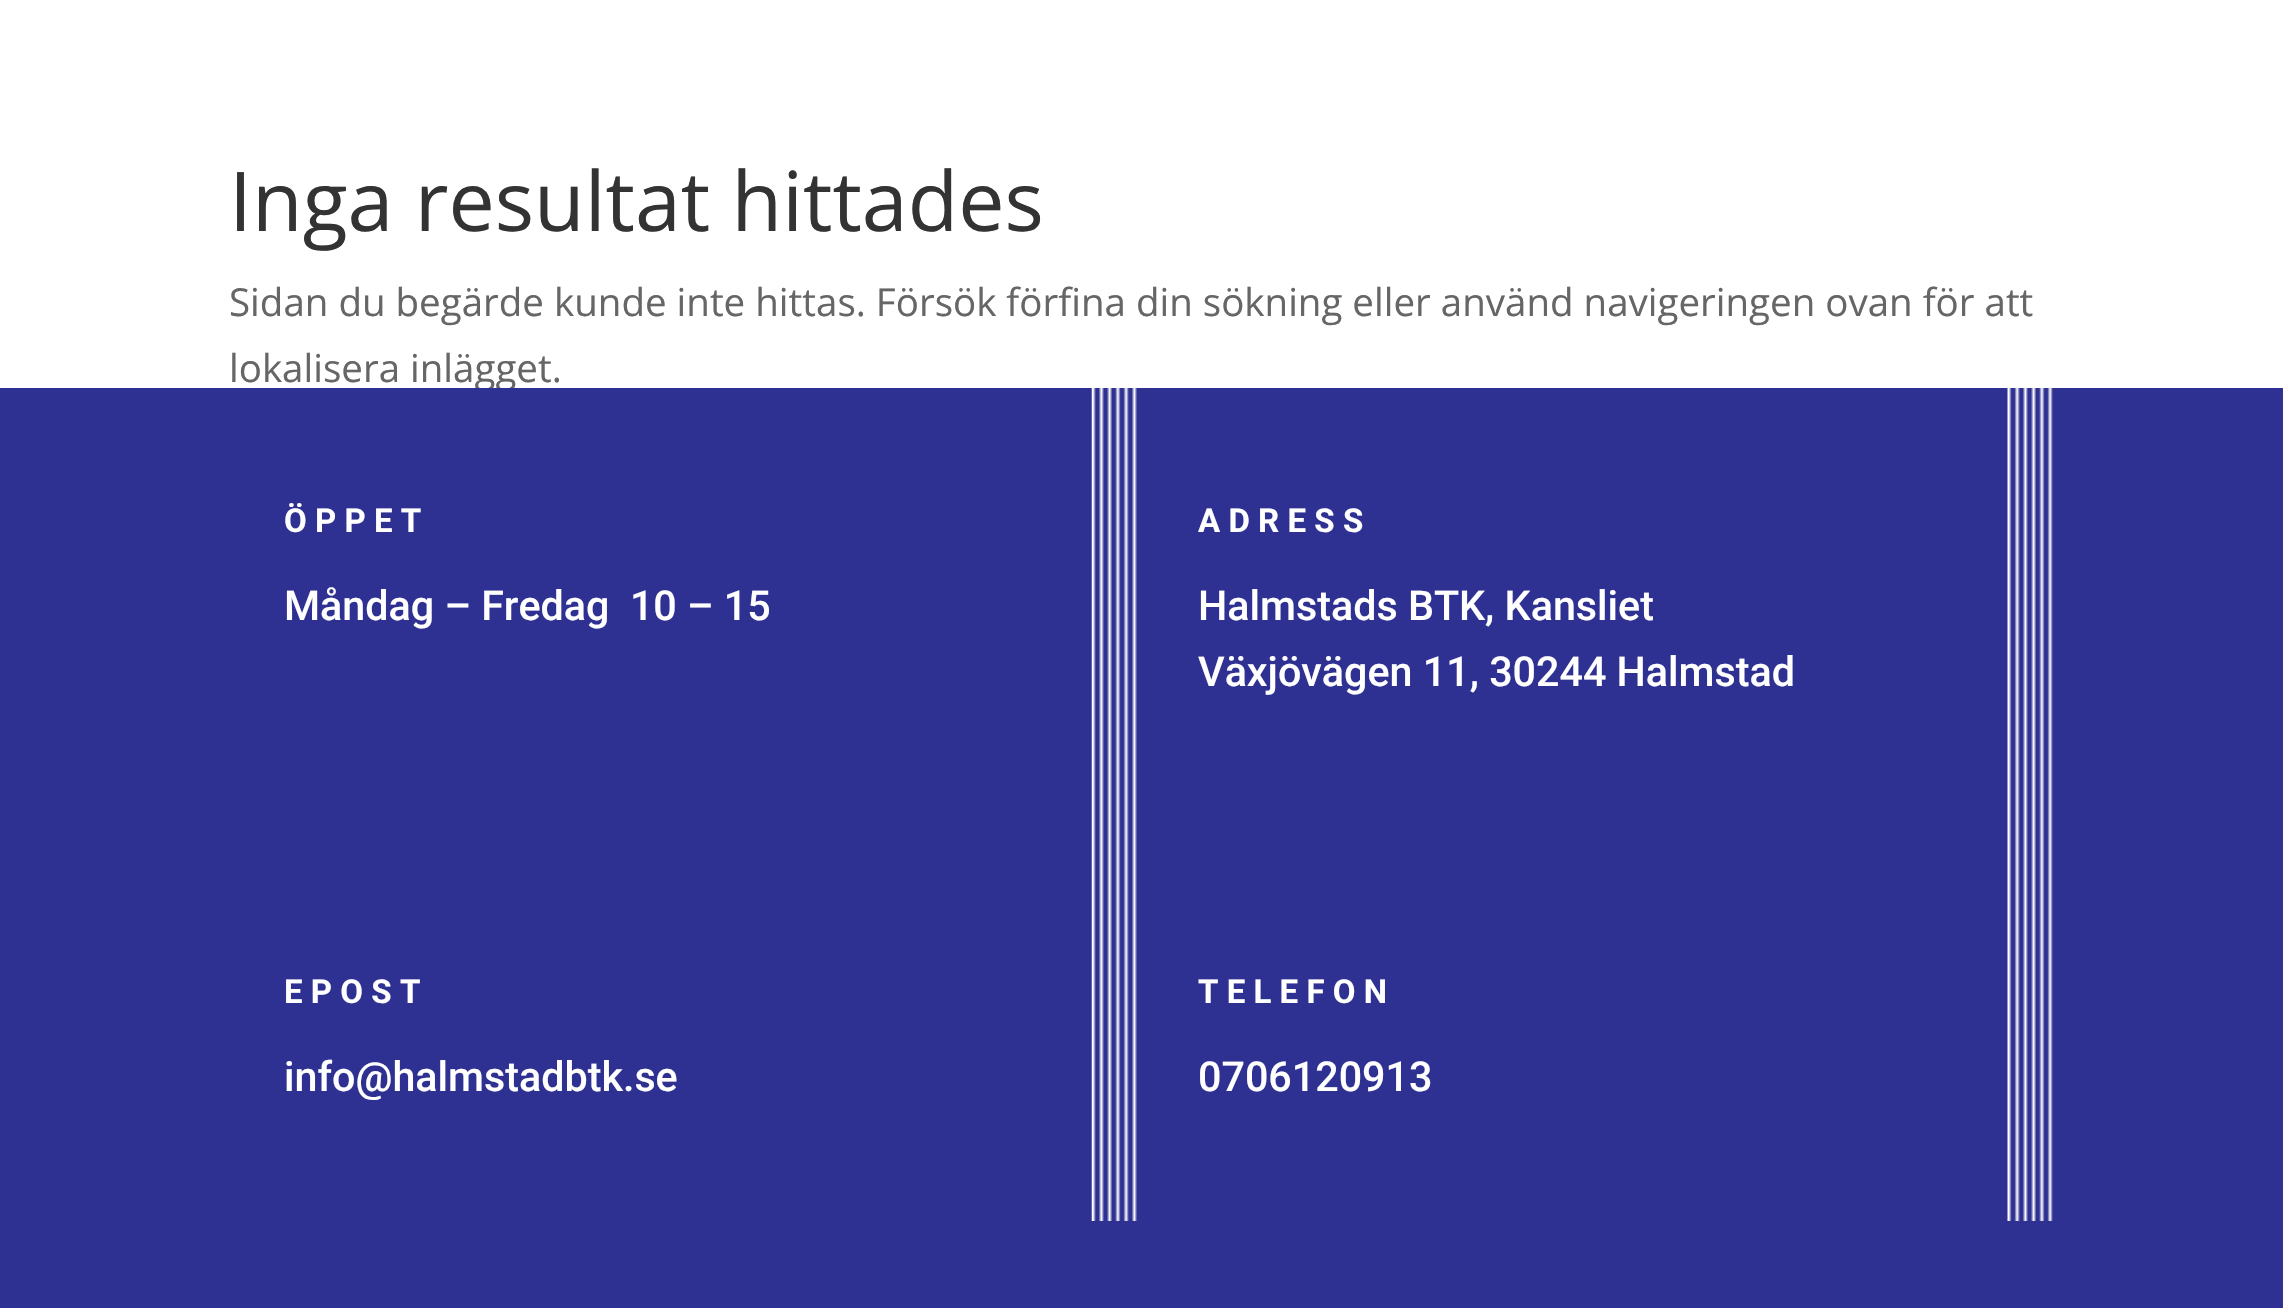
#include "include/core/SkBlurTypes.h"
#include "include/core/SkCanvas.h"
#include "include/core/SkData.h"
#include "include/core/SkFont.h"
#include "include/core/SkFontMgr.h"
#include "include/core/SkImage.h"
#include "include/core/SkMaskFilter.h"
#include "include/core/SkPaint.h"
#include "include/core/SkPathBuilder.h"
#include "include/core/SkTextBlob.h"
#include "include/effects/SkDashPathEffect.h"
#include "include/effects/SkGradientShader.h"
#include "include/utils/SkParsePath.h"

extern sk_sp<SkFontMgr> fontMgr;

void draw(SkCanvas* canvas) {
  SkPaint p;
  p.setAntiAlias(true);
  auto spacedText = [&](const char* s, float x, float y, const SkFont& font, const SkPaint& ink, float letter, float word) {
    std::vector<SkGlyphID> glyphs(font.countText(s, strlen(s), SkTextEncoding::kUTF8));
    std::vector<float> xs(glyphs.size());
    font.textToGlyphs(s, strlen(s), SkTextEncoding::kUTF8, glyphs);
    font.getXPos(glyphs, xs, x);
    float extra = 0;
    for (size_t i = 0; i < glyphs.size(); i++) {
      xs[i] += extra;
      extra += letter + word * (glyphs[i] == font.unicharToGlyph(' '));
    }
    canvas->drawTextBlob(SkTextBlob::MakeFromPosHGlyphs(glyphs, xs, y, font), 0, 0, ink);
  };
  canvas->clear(SK_ColorWHITE);
  SkFont font1(fontMgr->matchFamilyStyle("Open Sans", SkFontStyle::Normal()), 82.5f);
  font1.setSubpixel(true);
  p.setColor(SkColorSetRGB(51, 51, 51));
  canvas->drawString("Inga resultat hittades", 229, 231, font1, p);
  SkFont font2(fontMgr->matchFamilyStyle("Open Sans", SkFontStyle::Normal()), 38.5f);
  font2.setSubpixel(true);
  p.setColor(SkColorSetRGB(102, 102, 102));
  canvas->drawString("Sidan du begärde kunde inte hittas. Försök förfina din sökning eller använd navigeringen ovan för att", 229, 316, font2, p);
  canvas->drawString("lokalisera inlägget.", 229, 382, font2, p);
  p.setColor(SkColorSetRGB(46, 49, 146));
  canvas->drawRect(SkRect::MakeLTRB(0, 388, 2283, 1308), p);
  canvas->drawImageRect(SkImages::DeferredFromEncodedData(SkData::MakeFromFileName("images/1.png")), SkRect::MakeLTRB(1091, 388, 1137, 858), SkSamplingOptions());
  SkFont font3(fontMgr->matchFamilyStyle("Roboto", SkFontStyle::Bold()), 33);
  font3.setSubpixel(true);
  p.setColor(SK_ColorWHITE);
  spacedText("ÖPPET", 284, 532, font3, p, 8.25f, 0);
  SkFont font4(fontMgr->matchFamilyStyle("Roboto", SkFontStyle(500, SkFontStyle::kNormal_Width, SkFontStyle::kUpright_Slant)), 41.25f);
  font4.setSubpixel(true);
  canvas->drawString("Måndag – Fredag  10 – 15", 284, 620, font4, p);
  canvas->drawImageRect(SkImages::DeferredFromEncodedData(SkData::MakeFromFileName("images/2.png")), SkRect::MakeLTRB(2007, 388, 2053, 858), SkSamplingOptions());
  spacedText("ADRESS", 1198, 532, font3, p, 8.25f, 0);
  canvas->drawString("Halmstads BTK, Kansliet", 1198, 620, font4, p);
  canvas->drawString("Växjövägen 11, 30244 Halmstad", 1198, 686, font4, p);
  canvas->drawImageRect(SkImages::DeferredFromEncodedData(SkData::MakeFromFileName("images/3.png")), SkRect::MakeLTRB(1091, 858, 1137, 1221), SkSamplingOptions());
  spacedText("EPOST", 284, 1003, font3, p, 8.25f, 0);
  canvas->drawString("info@halmstadbtk.se", 284, 1091, font4, p);
  canvas->drawImageRect(SkImages::DeferredFromEncodedData(SkData::MakeFromFileName("images/4.png")), SkRect::MakeLTRB(2007, 858, 2053, 1221), SkSamplingOptions());
  spacedText("TELEFON", 1198, 1003, font3, p, 8.25f, 0);
  canvas->drawString("0706120913", 1198, 1091, font4, p);
}
